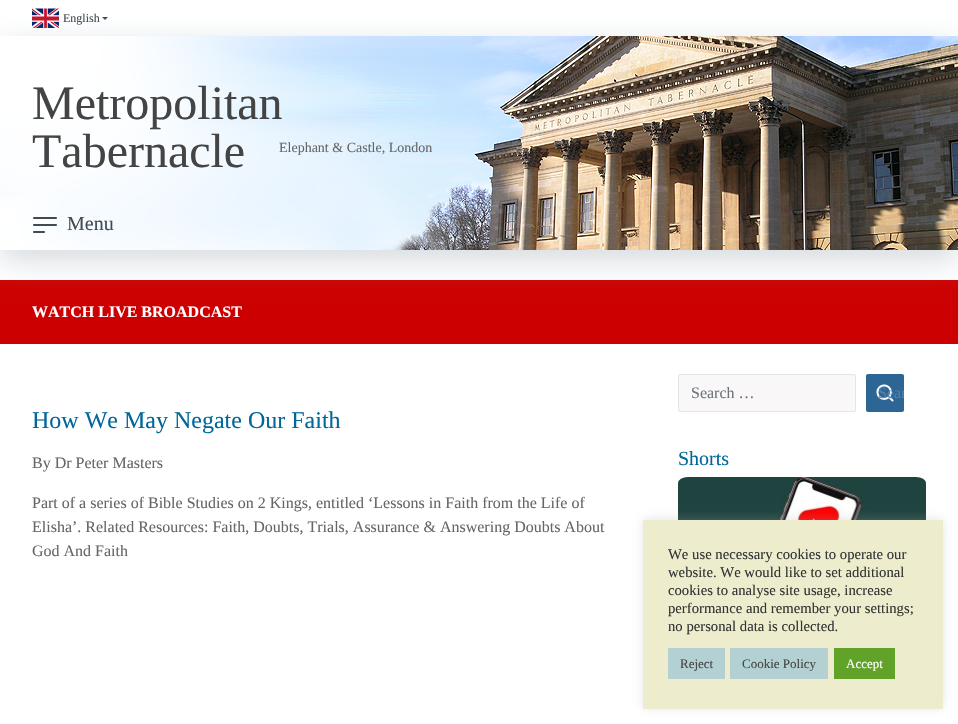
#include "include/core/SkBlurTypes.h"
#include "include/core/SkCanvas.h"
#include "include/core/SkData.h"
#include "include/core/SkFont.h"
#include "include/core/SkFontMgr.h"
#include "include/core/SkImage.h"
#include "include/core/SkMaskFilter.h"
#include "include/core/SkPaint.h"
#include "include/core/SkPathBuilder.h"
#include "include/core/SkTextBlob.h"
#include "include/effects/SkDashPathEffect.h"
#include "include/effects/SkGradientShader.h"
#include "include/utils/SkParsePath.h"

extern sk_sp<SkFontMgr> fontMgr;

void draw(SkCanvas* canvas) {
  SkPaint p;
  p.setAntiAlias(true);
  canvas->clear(SK_ColorWHITE);
  canvas->drawImageRect(SkImages::DeferredFromEncodedData(SkData::MakeFromFileName("images/1.png")), SkRect::MakeLTRB(32, 8, 59, 28), SkSamplingOptions());
  p.setColor(SkColorSetRGB(65, 75, 84));
  canvas->drawPath(SkPathBuilder().moveTo(102, 17).lineTo(108, 17).lineTo(105, 20).close().detach(), p);
  p.setColor(SkColorSetRGB(204, 0, 0));
  canvas->drawRect(SkRect::MakeLTRB(0, 280, 958, 344), p);
  p.setColor(SkColorSetARGB(128, 169, 179, 187));
  p.setMaskFilter(SkMaskFilter::MakeBlur(kNormal_SkBlurStyle, 15));
  canvas->drawRect(SkRect::MakeLTRB(0, 46, 958, 260), p);
  p.setMaskFilter(nullptr);
  canvas->drawImageRect(SkImages::DeferredFromEncodedData(SkData::MakeFromFileName("images/2.png")), SkRect::MakeLTRB(0, 36, 958, 250), SkSamplingOptions());
  canvas->drawImageRect(SkImages::DeferredFromEncodedData(SkData::MakeFromFileName("images/3.png")), SkRect::MakeLTRB(33, 217, 57, 233), SkSamplingOptions());
  p.setColor(SkColorSetRGB(249, 247, 247));
  canvas->drawRoundRect(SkRect::MakeLTRB(678.5f, 374.5f, 855.5f, 411.5f), 1.5f, 1.5f, p);
  p.setStyle(SkPaint::kStroke_Style);
  p.setStrokeWidth(1);
  p.setColor(SkColorSetRGB(229, 229, 229));
  canvas->drawRoundRect(SkRect::MakeLTRB(678.5f, 374.5f, 855.5f, 411.5f), 1.5f, 1.5f, p);
  p.setStyle(SkPaint::kFill_Style);
  p.setColor(SkColorSetRGB(45, 101, 149));
  canvas->drawRoundRect(SkRect::MakeLTRB(866, 374, 904, 412), 2, 2, p);
  canvas->drawImageRect(SkImages::DeferredFromEncodedData(SkData::MakeFromFileName("images/4.png")), SkRect::MakeLTRB(876, 384, 894, 402), SkSamplingOptions());
  canvas->drawImageRect(SkImages::DeferredFromEncodedData(SkData::MakeFromFileName("images/5.png")), SkRect::MakeLTRB(678, 477, 926, 520), SkSamplingOptions());
  p.setColor(SkColorSetARGB(77, 172, 171, 171));
  p.setMaskFilter(SkMaskFilter::MakeBlur(kNormal_SkBlurStyle, 5));
  canvas->drawRect(SkRect::MakeLTRB(643, 519, 943, 708), p);
  p.setMaskFilter(nullptr);
  p.setColor(SkColorSetRGB(237, 237, 206));
  canvas->drawRect(SkRect::MakeLTRB(643, 520, 943, 709), p);
  p.setColor(SkColorSetRGB(179, 209, 211));
  canvas->drawRect(SkRect::MakeLTRB(668, 648, 725, 679), p);
  canvas->drawRect(SkRect::MakeLTRB(730, 648, 828, 679), p);
  p.setColor(SkColorSetRGB(97, 162, 41));
  canvas->drawRect(SkRect::MakeLTRB(834, 648, 895, 679), p);
  SkFont font1(fontMgr->matchFamilyStyle("Liberation Serif", SkFontStyle::Normal()), 12);
  font1.setSubpixel(true);
  p.setColor(SkColorSetRGB(65, 75, 84));
  canvas->drawString("English", 63, 22, font1, p);
  SkFont font2(fontMgr->matchFamilyStyle("Liberation Serif", SkFontStyle::Normal()), 48);
  font2.setSubpixel(true);
  p.setColor(SkColorSetRGB(68, 68, 68));
  canvas->drawString("Metropolitan", 32, 119, font2, p);
  canvas->drawString("Tabernacle", 32, 167, font2, p);
  SkFont font3(fontMgr->matchFamilyStyle("Liberation Serif", SkFontStyle::Normal()), 14);
  font3.setSubpixel(true);
  p.setColor(SkColorSetRGB(102, 102, 102));
  canvas->drawString("Elephant & Castle, London", 279, 152, font3, p);
  SkFont font4(fontMgr->matchFamilyStyle("Liberation Serif", SkFontStyle::Normal()), 20);
  font4.setSubpixel(true);
  p.setColor(SkColorSetRGB(65, 75, 84));
  canvas->drawString("Menu", 67, 230, font4, p);
  SkFont font5(fontMgr->matchFamilyStyle("Liberation Serif", SkFontStyle::Bold()), 16);
  font5.setSubpixel(true);
  p.setColor(SK_ColorWHITE);
  canvas->drawString("WATCH LIVE BROADCAST", 32, 317, font5, p);
  SkFont font6(fontMgr->matchFamilyStyle("Liberation Serif", SkFontStyle::Normal()), 24);
  font6.setSubpixel(true);
  p.setColor(SkColorSetRGB(0, 103, 154));
  canvas->drawString("How We May Negate Our Faith", 32, 428, font6, p);
  SkFont font7(fontMgr->matchFamilyStyle("Liberation Serif", SkFontStyle::Normal()), 16);
  font7.setSubpixel(true);
  p.setColor(SkColorSetRGB(102, 102, 102));
  canvas->drawString("By Dr Peter Masters", 32, 468, font7, p);
  canvas->drawString("Part of a series of Bible Studies on 2 Kings, entitled ‘Lessons in Faith from the Life of", 32, 508, font7, p);
  canvas->drawString("Elisha’. Related Resources: Faith, Doubts, Trials, Assurance & Answering Doubts About", 32, 532, font7, p);
  canvas->drawString("God And Faith", 32, 556, font7, p);
  p.setColor(SkColorSetRGB(108, 117, 125));
  canvas->drawString("Search …", 691, 398, font7, p);
  canvas->save();
  canvas->clipPath(SkPathBuilder().moveTo(868, 374).lineTo(902, 374).cubicTo(903, 374, 904, 375, 904, 376).lineTo(904, 410).cubicTo(904, 411, 903, 412, 902, 412).lineTo(868, 412).cubicTo(867, 412, 866, 411, 866, 410).lineTo(866, 376).cubicTo(866, 375, 867, 374, 868, 374).close().detach(), true);
  p.setColor(SkColorSetRGB(83, 129, 168));
  canvas->drawString("Sear", 878, 398, font7, p);
  canvas->restore();
  p.setColor(SkColorSetRGB(0, 103, 154));
  canvas->drawString("Shorts", 678, 465, font4, p);
  SkFont font8(fontMgr->matchFamilyStyle("Liberation Serif", SkFontStyle::Normal()), 14.7f);
  font8.setSubpixel(true);
  p.setColor(SkColorSetRGB(51, 51, 51));
  canvas->drawString("We use necessary cookies to operate our", 668, 559, font8, p);
  canvas->drawString("website. We would like to set additional", 668, 577, font8, p);
  canvas->drawString("cookies to analyse site usage, increase", 668, 595, font8, p);
  canvas->drawString("performance and remember your settings;", 668, 613, font8, p);
  canvas->drawString("no personal data is collected.", 668, 631, font8, p);
  SkFont font9(fontMgr->matchFamilyStyle("Liberation Serif", SkFontStyle::Normal()), 13);
  font9.setSubpixel(true);
  p.setColor(SkColorSetRGB(68, 68, 68));
  canvas->drawString("Reject", 680, 668, font9, p);
  canvas->drawString("Cookie Policy", 742, 668, font9, p);
  p.setColor(SK_ColorWHITE);
  canvas->drawString("Accept", 846, 668, font9, p);
}
